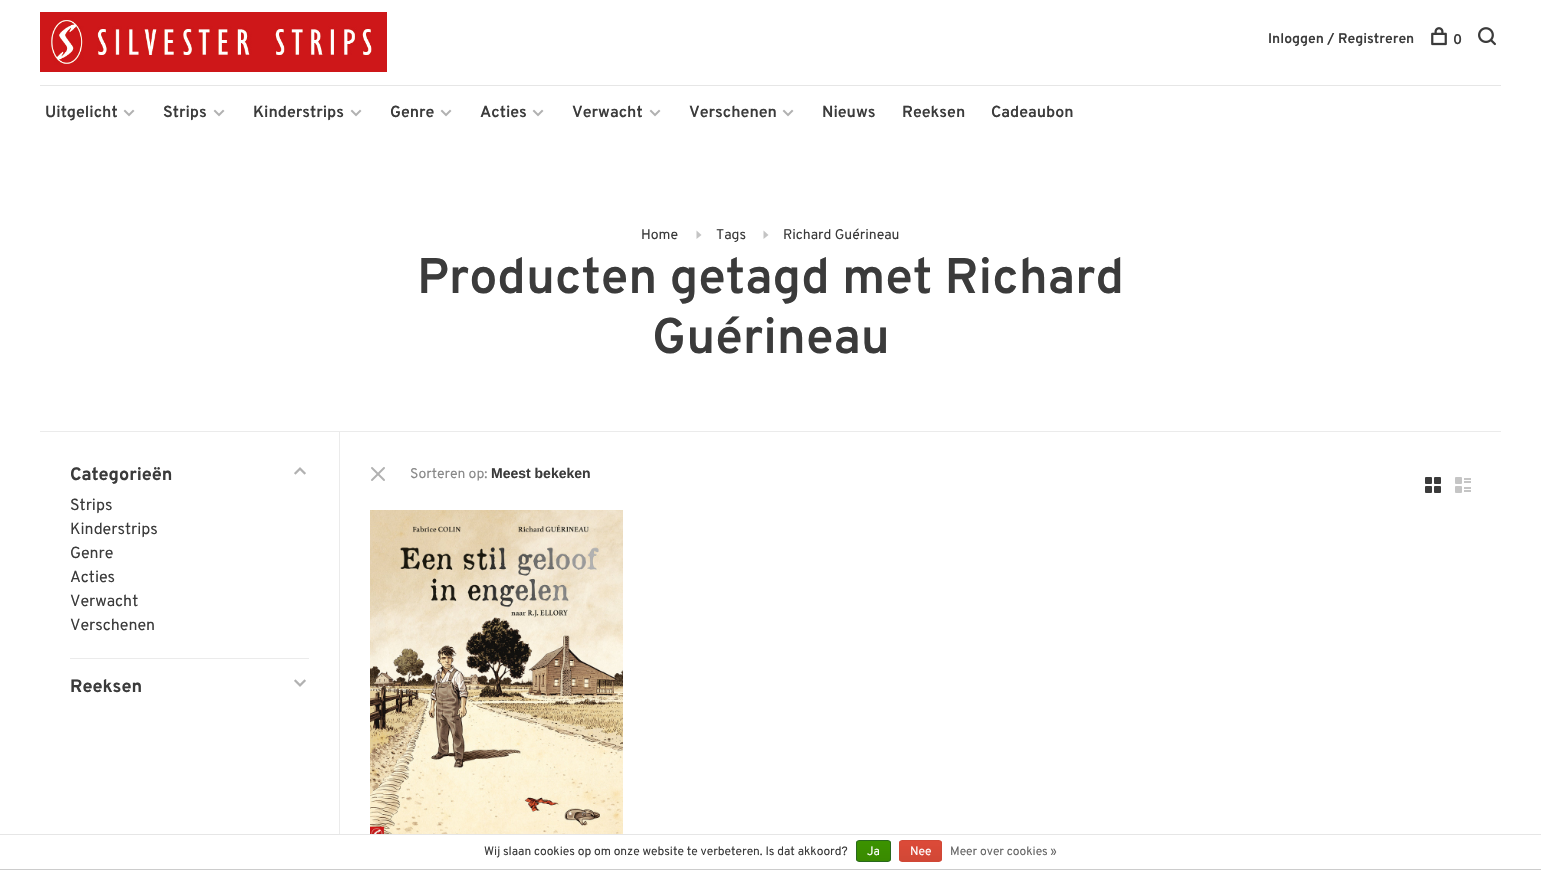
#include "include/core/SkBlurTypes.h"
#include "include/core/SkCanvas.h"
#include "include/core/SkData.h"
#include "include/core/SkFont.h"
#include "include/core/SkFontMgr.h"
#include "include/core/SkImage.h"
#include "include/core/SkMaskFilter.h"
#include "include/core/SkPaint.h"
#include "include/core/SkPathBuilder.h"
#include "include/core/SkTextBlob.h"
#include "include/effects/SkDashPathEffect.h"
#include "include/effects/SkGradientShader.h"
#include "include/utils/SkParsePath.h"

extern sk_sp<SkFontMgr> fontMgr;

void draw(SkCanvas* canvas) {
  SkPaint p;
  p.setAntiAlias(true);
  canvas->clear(SK_ColorWHITE);
  canvas->drawImageRect(SkImages::DeferredFromEncodedData(SkData::MakeFromFileName("images/1.png")), SkRect::MakeLTRB(40, 12, 387, 72), SkSamplingOptions());
  canvas->drawImageRect(SkImages::DeferredFromEncodedData(SkData::MakeFromFileName("images/2.png")), SkRect::MakeLTRB(1431, 27, 1447, 46), SkSamplingOptions());
  canvas->drawImageRect(SkImages::DeferredFromEncodedData(SkData::MakeFromFileName("images/3.png")), SkRect::MakeLTRB(1478, 27, 1496, 46), SkSamplingOptions());
  p.setColor(SkColorSetRGB(230, 230, 230));
  canvas->drawRect(SkRect::MakeLTRB(40, 85, 1501, 86), p);
  canvas->drawImageRect(SkImages::DeferredFromEncodedData(SkData::MakeFromFileName("images/4.png")), SkRect::MakeLTRB(123, 109, 135, 117), SkSamplingOptions());
  canvas->drawImageRect(SkImages::DeferredFromEncodedData(SkData::MakeFromFileName("images/4.png")), SkRect::MakeLTRB(213, 109, 225, 117), SkSamplingOptions());
  canvas->drawImageRect(SkImages::DeferredFromEncodedData(SkData::MakeFromFileName("images/4.png")), SkRect::MakeLTRB(350, 109, 362, 117), SkSamplingOptions());
  canvas->drawImageRect(SkImages::DeferredFromEncodedData(SkData::MakeFromFileName("images/4.png")), SkRect::MakeLTRB(440, 109, 452, 117), SkSamplingOptions());
  canvas->drawImageRect(SkImages::DeferredFromEncodedData(SkData::MakeFromFileName("images/4.png")), SkRect::MakeLTRB(532, 109, 544, 117), SkSamplingOptions());
  canvas->drawImageRect(SkImages::DeferredFromEncodedData(SkData::MakeFromFileName("images/4.png")), SkRect::MakeLTRB(649, 109, 661, 117), SkSamplingOptions());
  canvas->drawImageRect(SkImages::DeferredFromEncodedData(SkData::MakeFromFileName("images/4.png")), SkRect::MakeLTRB(782, 109, 794, 117), SkSamplingOptions());
  p.setColor(SkColorSetRGB(196, 196, 196));
  canvas->drawPath(SkPathBuilder().moveTo(696.5f, 239).lineTo(701.5f, 235).lineTo(696.5f, 230.5f).close().detach(), p);
  canvas->drawPath(SkPathBuilder().moveTo(763.5f, 239).lineTo(768.5f, 235).lineTo(763.5f, 230.5f).close().detach(), p);
  p.setColor(SkColorSetRGB(235, 235, 235));
  canvas->drawRect(SkRect::MakeLTRB(40, 431, 1501, 432), p);
  canvas->drawRect(SkRect::MakeLTRB(339, 432, 340, 834), p);
  canvas->drawRect(SkRect::MakeLTRB(70, 658, 309, 659), p);
  canvas->drawImageRect(SkImages::DeferredFromEncodedData(SkData::MakeFromFileName("images/5.png")), SkRect::MakeLTRB(294, 467, 306, 475), SkSamplingOptions());
  canvas->drawImageRect(SkImages::DeferredFromEncodedData(SkData::MakeFromFileName("images/6.png")), SkRect::MakeLTRB(294, 679, 306, 687), SkSamplingOptions());
  canvas->drawImageRect(SkImages::DeferredFromEncodedData(SkData::MakeFromFileName("images/7.png")), SkRect::MakeLTRB(371, 467, 385, 481), SkSamplingOptions());
  canvas->drawImageRect(SkImages::DeferredFromEncodedData(SkData::MakeFromFileName("images/8.png")), SkRect::MakeLTRB(1425, 477, 1441, 493), SkSamplingOptions());
  canvas->drawImageRect(SkImages::DeferredFromEncodedData(SkData::MakeFromFileName("images/9.png")), SkRect::MakeLTRB(1455, 477, 1471, 493), SkSamplingOptions());
  canvas->drawImageRect(SkImages::DeferredFromEncodedData(SkData::MakeFromFileName("images/10.png")), SkRect::MakeLTRB(370, 510, 623, 834), SkSamplingOptions());
  p.setColor(SkColorSetRGB(230, 230, 230));
  canvas->drawRect(SkRect::MakeLTRB(0, 834, 1541, 835), p);
  p.setColor(SkColorSetRGB(204, 204, 204));
  canvas->drawRect(SkRect::MakeLTRB(0, 869, 1541, 870), p);
  canvas->save();
  canvas->clipPath(SkPathBuilder().moveTo(859, 840).lineTo(888, 840).cubicTo(889.5f, 840, 891, 841.5f, 891, 843).lineTo(891, 859).cubicTo(891, 860.5f, 889.5f, 862, 888, 862).lineTo(859, 862).cubicTo(857.5f, 862, 856, 860.5f, 856, 859).lineTo(856, 843).cubicTo(856, 841.5f, 857.5f, 840, 859, 840).close().detach(), true);
  {
    const SkColor colors[] = {SkColorSetRGB(60, 147, 0), SkColorSetRGB(57, 138, 0)};
    const float stops[] = {0, 1};
    const SkPoint ends[] = {{874, 841}, {874, 861}};
    p.setShader(SkGradientShader::MakeLinear(ends, colors, stops, 2, SkTileMode::kClamp));
    p.setAlpha(255);
  }
  canvas->drawRect(SkRect::MakeLTRB(856, 841, 891, 861), p);
  canvas->restore();
  p.setStyle(SkPaint::kStroke_Style);
  p.setStrokeWidth(1);
  p.setShader(nullptr);
  p.setColor(SkColorSetRGB(41, 105, 29));
  canvas->drawRoundRect(SkRect::MakeLTRB(856.5f, 840.5f, 890.5f, 861.5f), 2.5f, 2.5f, p);
  canvas->save();
  canvas->clipPath(SkPathBuilder().moveTo(902, 840).lineTo(939, 840).cubicTo(940.5f, 840, 942, 841.5f, 942, 843).lineTo(942, 859).cubicTo(942, 860.5f, 940.5f, 862, 939, 862).lineTo(902, 862).cubicTo(900.5f, 862, 899, 860.5f, 899, 859).lineTo(899, 843).cubicTo(899, 841.5f, 900.5f, 840, 902, 840).close().detach(), true);
  p.setStyle(SkPaint::kFill_Style);
  {
    const SkColor colors[] = {SkColorSetRGB(220, 74, 56), SkColorSetRGB(209, 72, 54)};
    const float stops[] = {0, 1};
    const SkPoint ends[] = {{921, 841}, {921, 861}};
    p.setShader(SkGradientShader::MakeLinear(ends, colors, stops, 2, SkTileMode::kClamp));
    p.setAlpha(255);
  }
  canvas->drawRect(SkRect::MakeLTRB(899, 841, 942, 861), p);
  canvas->restore();
  p.setStyle(SkPaint::kStroke_Style);
  p.setShader(nullptr);
  p.setColor(SkColorSetRGB(209, 72, 54));
  canvas->drawRoundRect(SkRect::MakeLTRB(899.5f, 840.5f, 941.5f, 861.5f), 2.5f, 2.5f, p);
  SkFont font1(fontMgr->matchFamilyStyle("Overpass", SkFontStyle(600, SkFontStyle::kNormal_Width, SkFontStyle::kUpright_Slant)), 14);
  font1.setSubpixel(true);
  p.setStyle(SkPaint::kFill_Style);
  p.setColor(SkColorSetRGB(59, 59, 59));
  canvas->drawString("Inloggen / Registreren", 1268, 43, font1, p);
  canvas->drawString("0", 1453, 44, font1, p);
  SkFont font2(fontMgr->matchFamilyStyle("Overpass", SkFontStyle(600, SkFontStyle::kNormal_Width, SkFontStyle::kUpright_Slant)), 16);
  font2.setSubpixel(true);
  canvas->drawString("Uitgelicht", 45, 117, font2, p);
  canvas->drawString("Strips", 163, 117, font2, p);
  canvas->drawString("Kinderstrips", 253, 117, font2, p);
  canvas->drawString("Genre", 390, 117, font2, p);
  canvas->drawString("Acties", 480, 117, font2, p);
  canvas->drawString("Verwacht", 572, 117, font2, p);
  canvas->drawString("Verschenen", 689, 117, font2, p);
  canvas->drawString("Nieuws", 822, 117, font2, p);
  canvas->drawString("Reeksen", 902, 117, font2, p);
  canvas->drawString("Cadeaubon", 991, 117, font2, p);
  SkFont font3(fontMgr->matchFamilyStyle("Overpass", SkFontStyle::Normal()), 14);
  font3.setSubpixel(true);
  canvas->drawString("Home", 641, 239, font3, p);
  canvas->drawString("Tags", 716, 239, font3, p);
  canvas->drawString("Richard Guérineau", 783, 239, font3, p);
  SkFont font4(fontMgr->matchFamilyStyle("Overpass", SkFontStyle(600, SkFontStyle::kNormal_Width, SkFontStyle::kUpright_Slant)), 50);
  font4.setSubpixel(true);
  canvas->drawString("Producten getagd met Richard", 417, 293, font4, p);
  canvas->drawString("Guérineau", 652, 353, font4, p);
  SkFont font5(fontMgr->matchFamilyStyle("Overpass", SkFontStyle::Bold()), 18);
  font5.setSubpixel(true);
  canvas->drawString("Categorieën", 70, 480, font5, p);
  SkFont font6(fontMgr->matchFamilyStyle("Overpass", SkFontStyle::Normal()), 16);
  font6.setSubpixel(true);
  canvas->drawString("Strips", 70, 510, font6, p);
  canvas->drawString("Kinderstrips", 70, 534, font6, p);
  canvas->drawString("Genre", 70, 558, font6, p);
  canvas->drawString("Acties", 70, 582, font6, p);
  canvas->drawString("Verwacht", 70, 606, font6, p);
  canvas->drawString("Verschenen", 70, 630, font6, p);
  canvas->drawString("Reeksen", 70, 692, font5, p);
  p.setColor(SkColorSetRGB(137, 137, 137));
  canvas->drawString("Sorteren op:", 410, 478, font3, p);
  SkFont font7(fontMgr->matchFamilyStyle("Liberation Sans", SkFontStyle::Bold()), 14);
  font7.setSubpixel(true);
  p.setColor(SkColorSetRGB(59, 59, 59));
  canvas->drawString("Meest bekeken", 491, 478, font7, p);
  SkFont font8(fontMgr->matchFamilyStyle("Overpass", SkFontStyle::Normal()), 12);
  font8.setSubpixel(true);
  canvas->drawString("Wij slaan cookies op om onze website te verbeteren. Is dat akkoord?", 484, 855, font8, p);
  p.setColor(SK_ColorWHITE);
  canvas->drawString("Ja", 867, 855, font8, p);
  canvas->drawString("Nee", 910, 855, font8, p);
  p.setColor(SkColorSetRGB(102, 102, 102));
  canvas->drawString("Meer over cookies »", 950, 855, font8, p);
}
